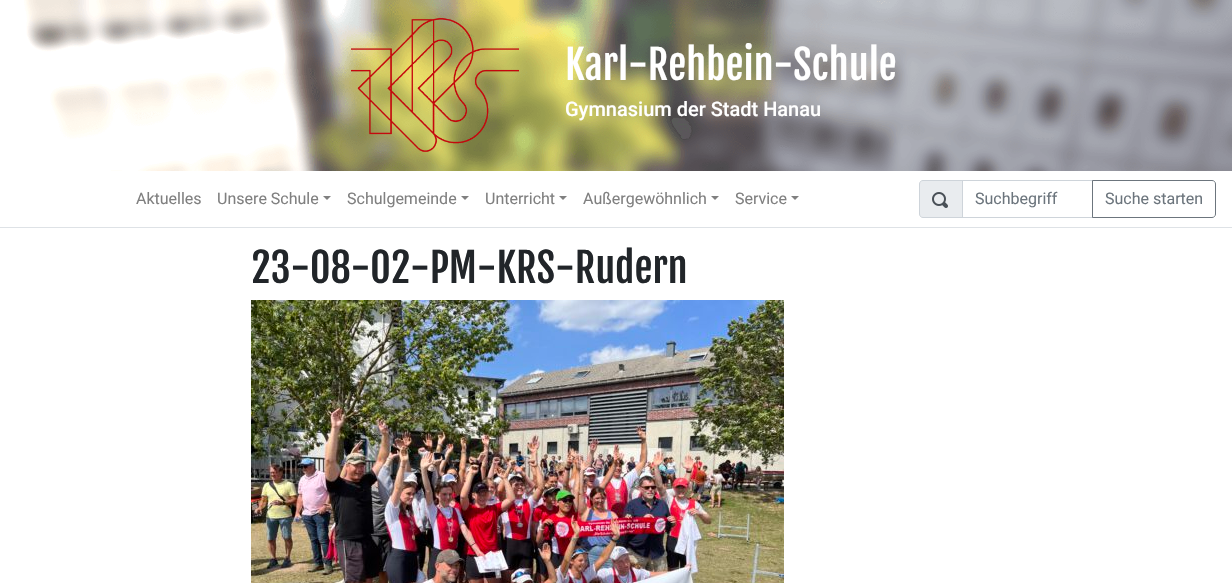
#include "include/core/SkBlurTypes.h"
#include "include/core/SkCanvas.h"
#include "include/core/SkData.h"
#include "include/core/SkFont.h"
#include "include/core/SkFontMgr.h"
#include "include/core/SkImage.h"
#include "include/core/SkMaskFilter.h"
#include "include/core/SkPaint.h"
#include "include/core/SkPathBuilder.h"
#include "include/core/SkTextBlob.h"
#include "include/effects/SkDashPathEffect.h"
#include "include/effects/SkGradientShader.h"
#include "include/utils/SkParsePath.h"

extern sk_sp<SkFontMgr> fontMgr;

void draw(SkCanvas* canvas) {
  SkPaint p;
  p.setAntiAlias(true);
  canvas->clear(SK_ColorWHITE);
  canvas->drawImageRect(SkImages::DeferredFromEncodedData(SkData::MakeFromFileName("images/1.png")), SkRect::MakeLTRB(24, 0, 1232, 171), SkSamplingOptions());
  canvas->drawImageRect(SkImages::DeferredFromEncodedData(SkData::MakeFromFileName("images/2.png")), SkRect::MakeLTRB(351, 17, 519, 152), SkSamplingOptions());
  p.setColor(SkColorSetRGB(222, 226, 230));
  canvas->drawRect(SkRect::MakeLTRB(0, 227, 1232, 228), p);
  p.setColor(SkColorSetRGB(128, 128, 128));
  canvas->drawPath(SkPathBuilder().moveTo(323, 196).lineTo(331, 196).lineTo(327, 200).close().detach(), p);
  canvas->drawPath(SkPathBuilder().moveTo(461, 196).lineTo(469, 196).lineTo(465, 200).close().detach(), p);
  canvas->drawPath(SkPathBuilder().moveTo(559, 196).lineTo(567, 196).lineTo(563, 200).close().detach(), p);
  canvas->drawPath(SkPathBuilder().moveTo(711, 196).lineTo(719, 196).lineTo(715, 200).close().detach(), p);
  canvas->drawPath(SkPathBuilder().moveTo(791, 196).lineTo(799, 196).lineTo(795, 200).close().detach(), p);
  p.setColor(SkColorSetRGB(233, 236, 239));
  canvas->drawPath(SkPathBuilder().moveTo(923, 180.5f).lineTo(962.5f, 180.5f).lineTo(962.5f, 217.5f).lineTo(923, 217.5f).cubicTo(921, 217.5f, 919.5f, 216, 919.5f, 214).lineTo(919.5f, 184).cubicTo(919.5f, 182, 921, 180.5f, 923, 180.5f).close().detach(), p);
  p.setStyle(SkPaint::kStroke_Style);
  p.setStrokeWidth(1);
  p.setColor(SkColorSetRGB(206, 212, 218));
  canvas->drawPath(SkPathBuilder().moveTo(923, 180.5f).lineTo(962.5f, 180.5f).lineTo(962.5f, 217.5f).lineTo(923, 217.5f).cubicTo(921, 217.5f, 919.5f, 216, 919.5f, 214).lineTo(919.5f, 184).cubicTo(919.5f, 182, 921, 180.5f, 923, 180.5f).close().detach(), p);
  canvas->drawImageRect(SkImages::DeferredFromEncodedData(SkData::MakeFromFileName("images/3.png")), SkRect::MakeLTRB(932, 192, 948, 208), SkSamplingOptions());
  canvas->drawRect(SkRect::MakeLTRB(962.5f, 180.5f, 1092.5f, 217.5f), p);
  p.setColor(SkColorSetRGB(108, 117, 125));
  canvas->drawPath(SkPathBuilder().moveTo(1092.5f, 180.5f).lineTo(1212, 180.5f).cubicTo(1214, 180.5f, 1215.5f, 182, 1215.5f, 184).lineTo(1215.5f, 214).cubicTo(1215.5f, 216, 1214, 217.5f, 1212, 217.5f).lineTo(1092.5f, 217.5f).close().detach(), p);
  canvas->drawImageRect(SkImages::DeferredFromEncodedData(SkData::MakeFromFileName("images/4.png")), SkRect::MakeLTRB(251, 300, 784, 583), SkSamplingOptions());
  SkFont font1(fontMgr->matchFamilyStyle("Fjalla One", SkFontStyle::Normal()), 40);
  font1.setSubpixel(true);
  p.setStyle(SkPaint::kFill_Style);
  p.setColor(SK_ColorWHITE);
  canvas->drawString("Karl-Rehbein-Schule", 565, 80, font1, p);
  SkFont font2(fontMgr->matchFamilyStyle("Roboto", SkFontStyle(500, SkFontStyle::kNormal_Width, SkFontStyle::kUpright_Slant)), 20);
  font2.setSubpixel(true);
  canvas->drawString("Gymnasium der Stadt Hanau", 565, 116, font2, p);
  SkFont font3(fontMgr->matchFamilyStyle("Roboto", SkFontStyle::Normal()), 16);
  font3.setSubpixel(true);
  p.setColor(SkColorSetRGB(128, 128, 128));
  canvas->drawString("Aktuelles", 136, 204, font3, p);
  canvas->drawString("Unsere Schule", 217, 204, font3, p);
  canvas->drawString("Schulgemeinde", 347, 204, font3, p);
  canvas->drawString("Unterricht", 485, 204, font3, p);
  canvas->drawString("Außergewöhnlich", 583, 204, font3, p);
  canvas->drawString("Service", 735, 204, font3, p);
  p.setColor(SkColorSetRGB(108, 117, 125));
  canvas->drawString("Suchbegriff", 975, 204, font3, p);
  canvas->drawString("Suche starten", 1105, 204, font3, p);
  p.setColor(SkColorSetRGB(33, 37, 41));
  canvas->drawString("23-08-02-PM-KRS-Rudern", 251, 283, font1, p);
}
